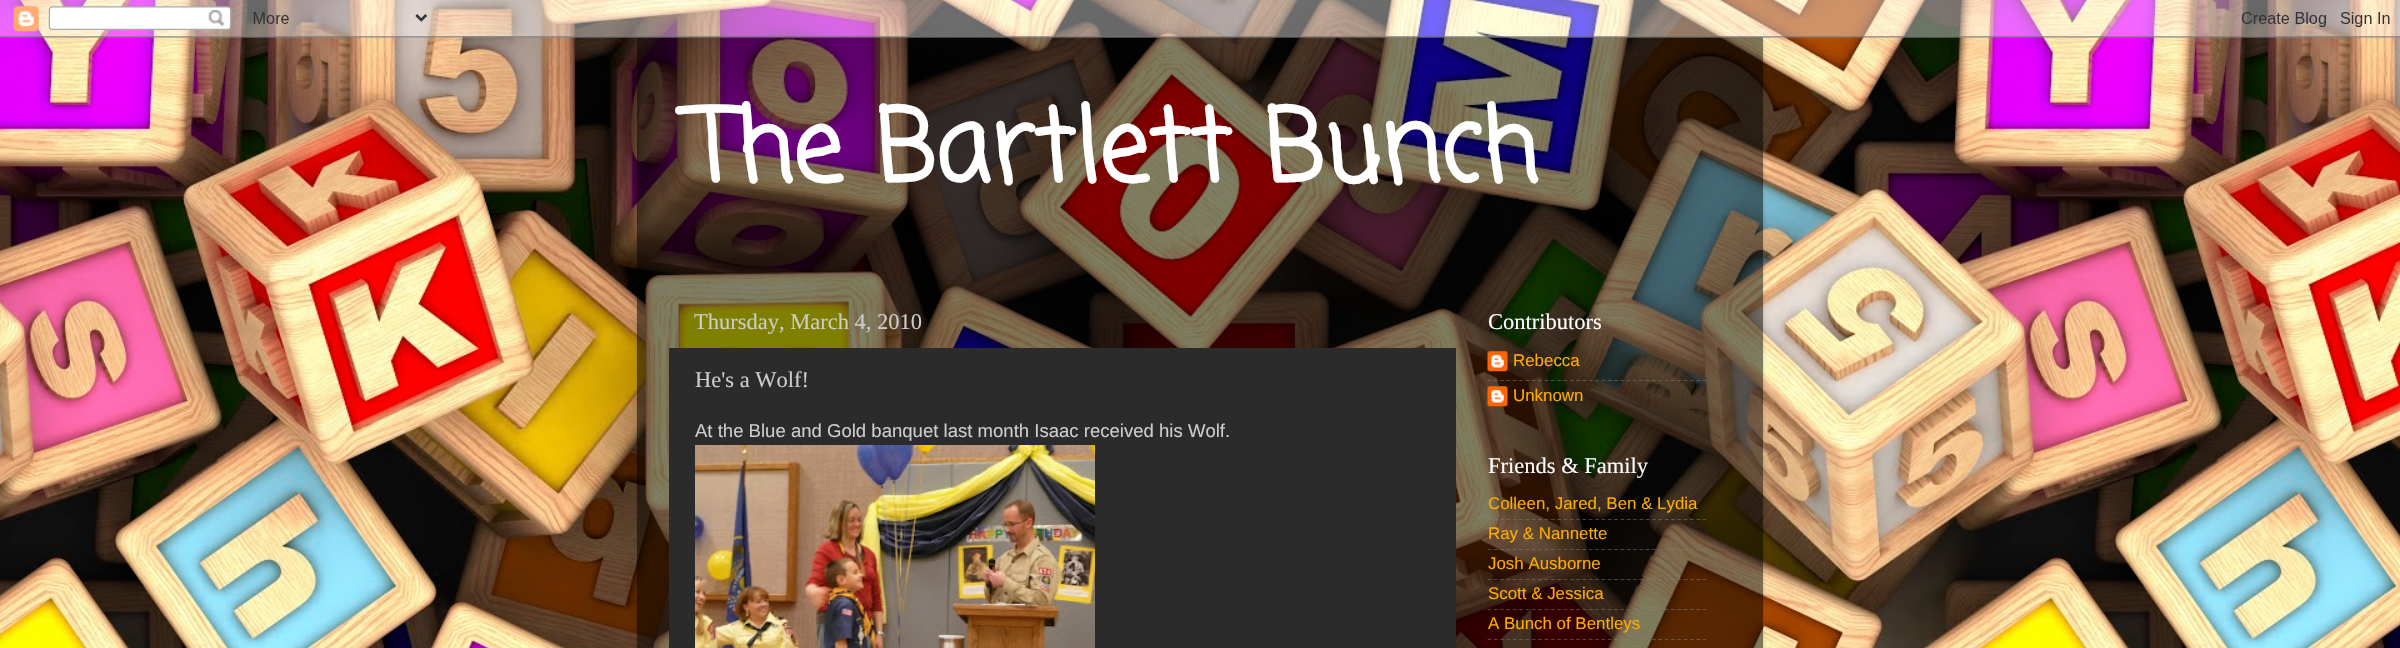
#include "include/core/SkBlurTypes.h"
#include "include/core/SkCanvas.h"
#include "include/core/SkData.h"
#include "include/core/SkFont.h"
#include "include/core/SkFontMgr.h"
#include "include/core/SkImage.h"
#include "include/core/SkMaskFilter.h"
#include "include/core/SkPaint.h"
#include "include/core/SkPathBuilder.h"
#include "include/core/SkTextBlob.h"
#include "include/effects/SkDashPathEffect.h"
#include "include/effects/SkGradientShader.h"
#include "include/utils/SkParsePath.h"

extern sk_sp<SkFontMgr> fontMgr;

void draw(SkCanvas* canvas) {
  SkPaint p;
  p.setAntiAlias(true);
  canvas->clear(SK_ColorWHITE);
  canvas->drawImageRect(SkImages::DeferredFromEncodedData(SkData::MakeFromFileName("images/1.png")), SkRect::MakeLTRB(0, 0, 2400, 648), SkSamplingOptions());
  canvas->save();
  canvas->clipPath(SkPathBuilder(SkPathFillType::kEvenOdd).moveTo(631, 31).lineTo(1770, 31).lineTo(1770, 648).lineTo(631, 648).close().moveTo(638, 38).lineTo(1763, 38).lineTo(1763, 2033).lineTo(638, 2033).close().detach(), true);
  p.setColor(SkColorSetARGB(38, 0, 0, 0));
  p.setMaskFilter(SkMaskFilter::MakeBlur(kNormal_SkBlurStyle, 2));
  canvas->drawRect(SkRect::MakeLTRB(638, 38, 1763, 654), p);
  p.setMaskFilter(nullptr);
  canvas->restore();
  p.setColor(SkColorSetARGB(128, 0, 0, 0));
  canvas->drawRect(SkRect::MakeLTRB(637, 37, 1763, 648), p);
  canvas->drawImageRect(SkImages::DeferredFromEncodedData(SkData::MakeFromFileName("images/2.png")), SkRect::MakeLTRB(0, 0, 2400, 38), SkSamplingOptions());
  p.setColor(SkColorSetRGB(43, 43, 43));
  canvas->drawRect(SkRect::MakeLTRB(669, 348, 1456, 648), p);
  canvas->drawImageRect(SkImages::DeferredFromEncodedData(SkData::MakeFromFileName("images/3.png")), SkRect::MakeLTRB(695, 445, 1095, 648), SkSamplingOptions());
  canvas->drawImageRect(SkImages::DeferredFromEncodedData(SkData::MakeFromFileName("images/4.png")), SkRect::MakeLTRB(1487, 351, 1508, 372), SkSamplingOptions());
  p.setStyle(SkPaint::kStroke_Style);
  p.setStrokeWidth(1.2f);
  p.setColor(SkColorSetARGB(128, 128, 128, 128));
  p.setPathEffect(SkDashPathEffect::Make({{3.75f, 2.58f}}, 0));
  canvas->drawPath(SkPathBuilder().moveTo(1487.5f, 380.5f).lineTo(1706, 380.5f).detach(), p);
  p.setPathEffect(nullptr);
  canvas->drawImageRect(SkImages::DeferredFromEncodedData(SkData::MakeFromFileName("images/5.png")), SkRect::MakeLTRB(1487, 386, 1508, 407), SkSamplingOptions());
  p.setPathEffect(SkDashPathEffect::Make({{3.75f, 2.58f}}, 0));
  canvas->drawPath(SkPathBuilder().moveTo(1487.5f, 519.5f).lineTo(1706, 519.5f).detach(), p);
  p.setPathEffect(nullptr);
  p.setPathEffect(SkDashPathEffect::Make({{3.75f, 2.58f}}, 0));
  canvas->drawPath(SkPathBuilder().moveTo(1487.5f, 549.5f).lineTo(1706, 549.5f).detach(), p);
  p.setPathEffect(nullptr);
  p.setPathEffect(SkDashPathEffect::Make({{3.75f, 2.58f}}, 0));
  canvas->drawPath(SkPathBuilder().moveTo(1487.5f, 579.5f).lineTo(1706, 579.5f).detach(), p);
  p.setPathEffect(nullptr);
  p.setPathEffect(SkDashPathEffect::Make({{3.75f, 2.58f}}, 0));
  canvas->drawPath(SkPathBuilder().moveTo(1487.5f, 609.5f).lineTo(1706, 609.5f).detach(), p);
  p.setPathEffect(nullptr);
  p.setPathEffect(SkDashPathEffect::Make({{3.75f, 2.58f}}, 0));
  canvas->drawPath(SkPathBuilder().moveTo(1487.5f, 639.5f).lineTo(1706, 639.5f).detach(), p);
  p.setPathEffect(nullptr);
  SkFont font1(fontMgr->matchFamilyStyle("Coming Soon", SkFontStyle::Bold()), 100);
  font1.setSubpixel(true);
  p.setStyle(SkPaint::kFill_Style);
  p.setColor(SK_ColorWHITE);
  canvas->drawString("The Bartlett Bunch", 688, 181, font1, p);
  SkFont font2(fontMgr->matchFamilyStyle("Liberation Serif", SkFontStyle::Normal()), 22.5f);
  font2.setSubpixel(true);
  p.setColor(SkColorSetRGB(204, 204, 204));
  canvas->drawString("Thursday, March 4, 2010", 694, 329, font2, p);
  canvas->drawString("He's a Wolf!", 695, 387, font2, p);
  SkFont font3(fontMgr->matchFamilyStyle("Liberation Sans", SkFontStyle::Normal()), 18.55f);
  font3.setSubpixel(true);
  canvas->drawString("At the Blue and Gold banquet last month Isaac received his Wolf.", 695, 437, font3, p);
  p.setColor(SK_ColorWHITE);
  canvas->drawString("Contributors", 1488, 329, font2, p);
  SkFont font4(fontMgr->matchFamilyStyle("Liberation Sans", SkFontStyle::Normal()), 16.9f);
  font4.setSubpixel(true);
  p.setColor(SkColorSetRGB(255, 171, 2));
  canvas->drawString("Rebecca", 1513, 366, font4, p);
  canvas->drawString("Unknown", 1513, 401, font4, p);
  p.setColor(SK_ColorWHITE);
  canvas->drawString("Friends & Family", 1488, 473, font2, p);
  p.setColor(SkColorSetRGB(255, 171, 2));
  canvas->drawString("Colleen, Jared, Ben & Lydia", 1488, 509, font4, p);
  canvas->drawString("Ray & Nannette", 1488, 539, font4, p);
  canvas->drawString("Josh Ausborne", 1488, 569, font4, p);
  canvas->drawString("Scott & Jessica", 1488, 599, font4, p);
  canvas->drawString("A Bunch of Bentleys", 1488, 629, font4, p);
}
